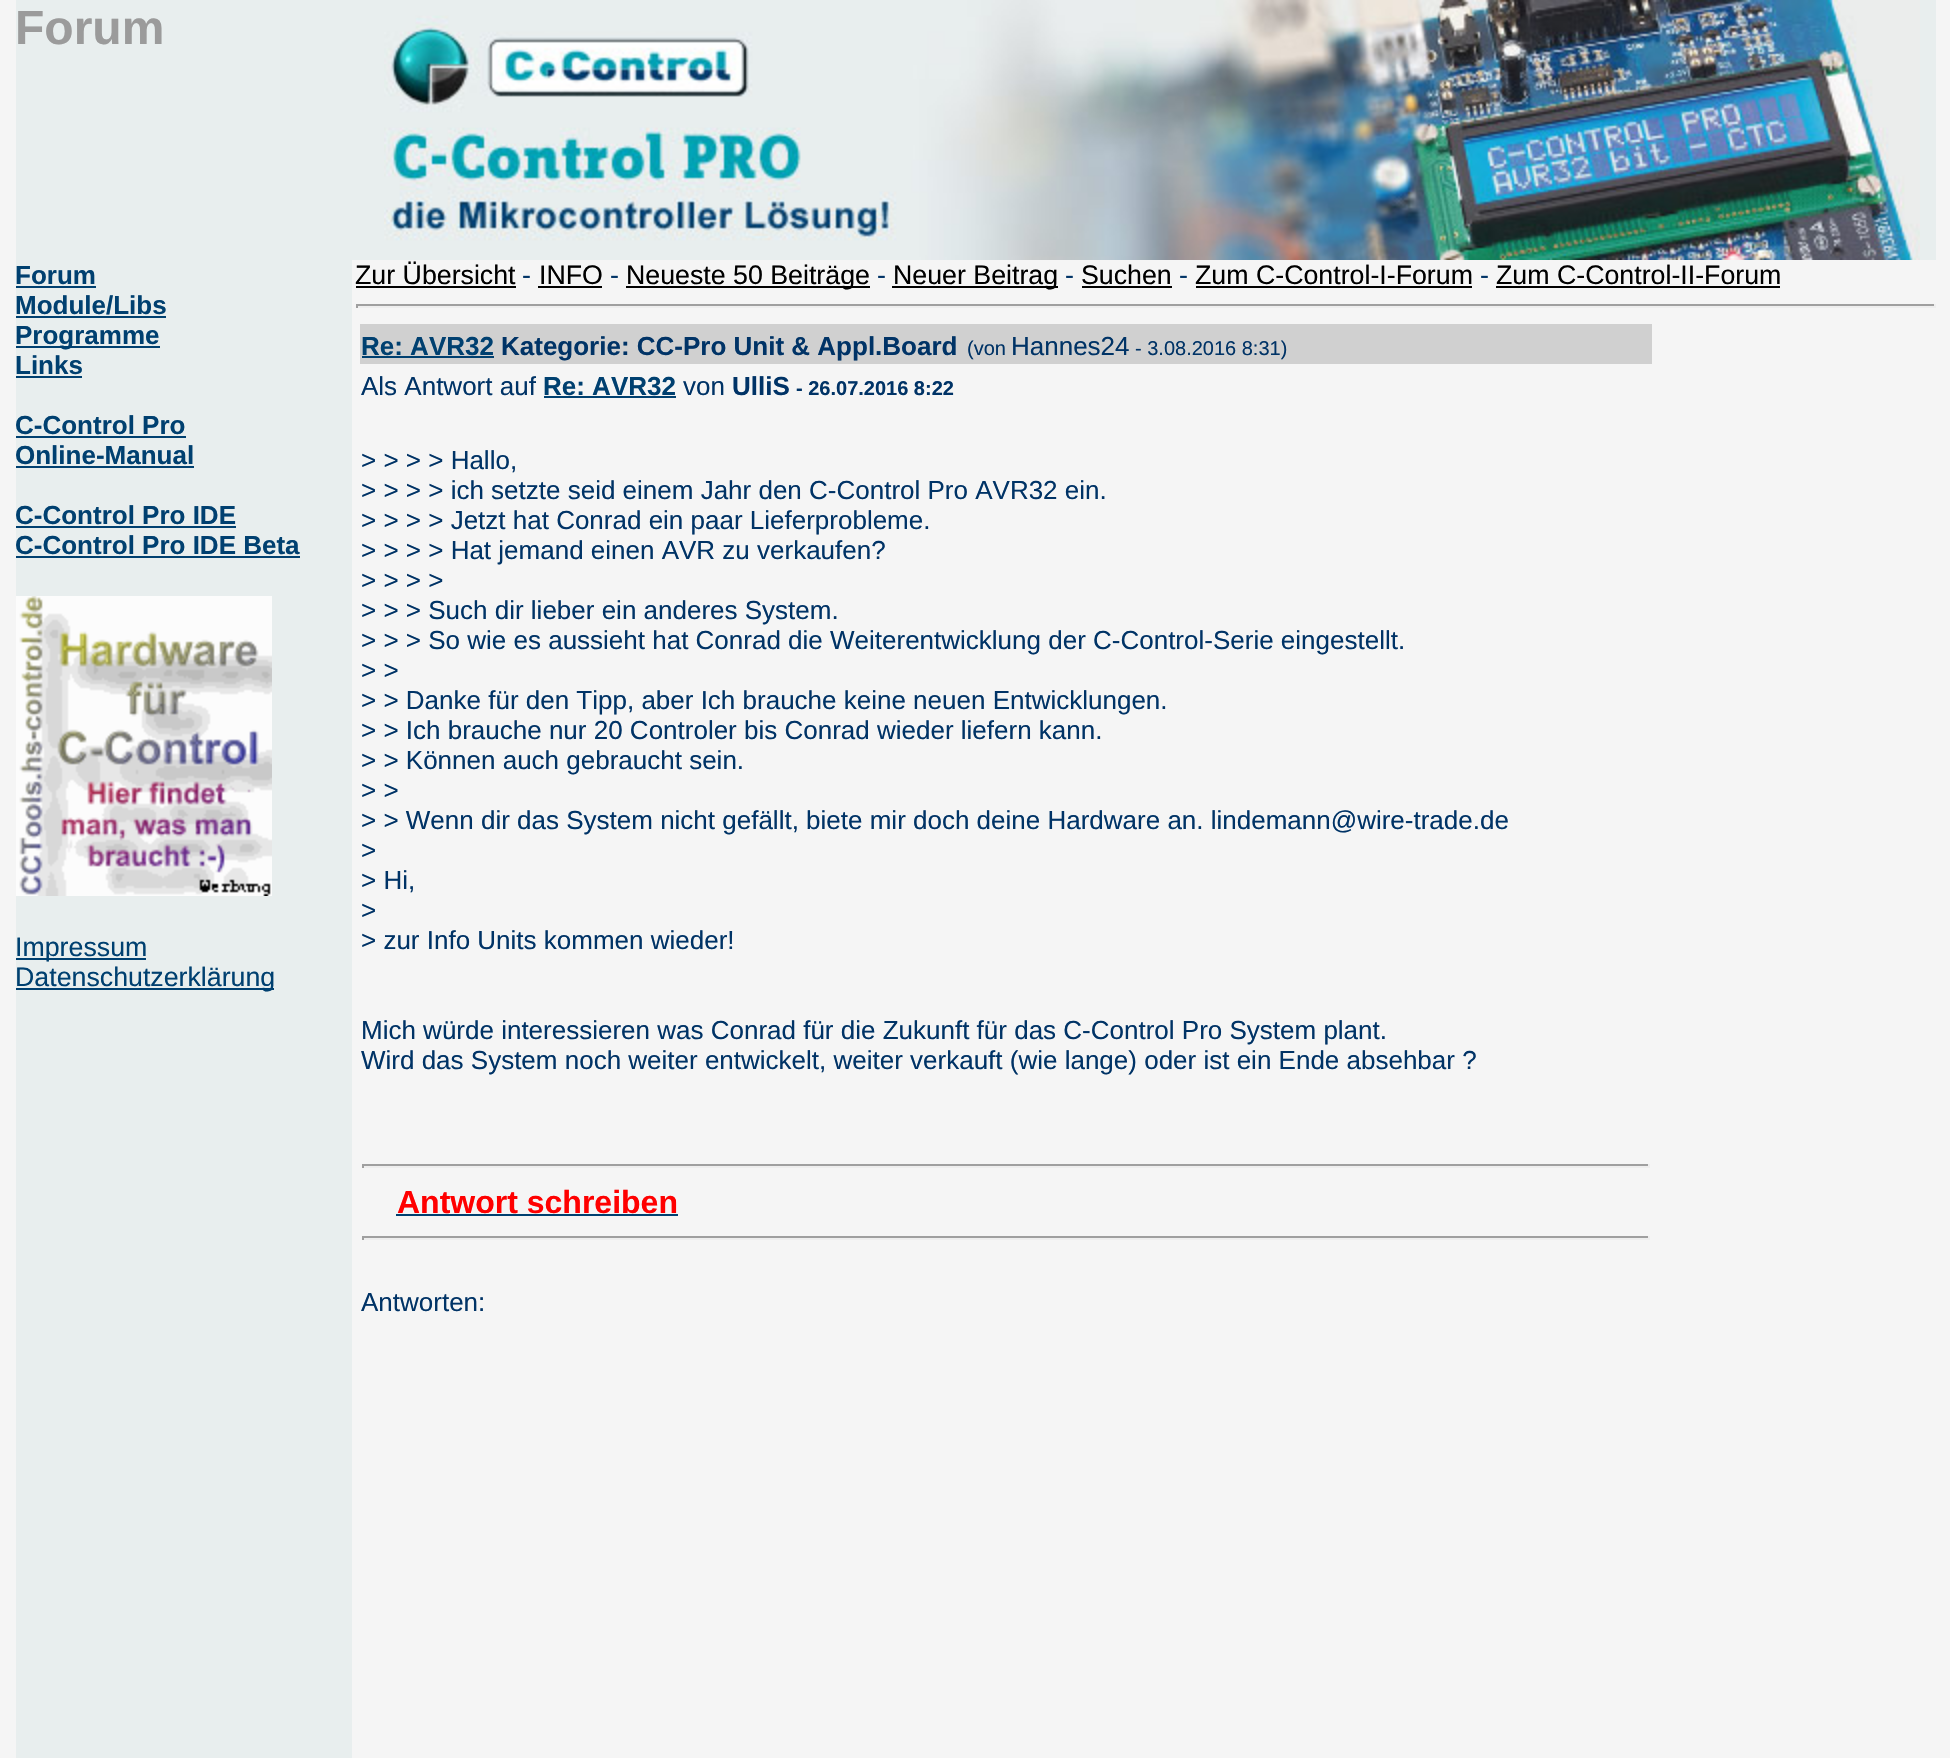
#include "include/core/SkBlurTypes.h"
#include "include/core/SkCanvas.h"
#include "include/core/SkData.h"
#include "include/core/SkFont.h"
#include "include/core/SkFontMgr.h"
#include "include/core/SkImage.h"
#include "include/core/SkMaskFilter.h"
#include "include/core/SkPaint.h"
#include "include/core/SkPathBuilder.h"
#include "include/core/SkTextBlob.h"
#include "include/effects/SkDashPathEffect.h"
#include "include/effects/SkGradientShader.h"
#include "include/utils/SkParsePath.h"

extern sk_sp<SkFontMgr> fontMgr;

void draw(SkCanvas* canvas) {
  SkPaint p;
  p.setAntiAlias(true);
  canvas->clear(SkColorSetRGB(245, 245, 245));
  p.setColor(SkColorSetRGB(232, 238, 238));
  canvas->drawRect(SkRect::MakeLTRB(352, 0, 1936, 260), p);
  canvas->drawImageRect(SkImages::DeferredFromEncodedData(SkData::MakeFromFileName("images/1.png")), SkRect::MakeLTRB(384, 0, 1920, 260), SkSamplingOptions());
  canvas->drawRect(SkRect::MakeLTRB(16, 0, 352, 1758), p);
  p.setColor(SkColorSetRGB(0, 64, 112));
  canvas->drawRect(SkRect::MakeLTRB(16, 286, 96, 288), p);
  canvas->drawRect(SkRect::MakeLTRB(16, 316, 166, 318), p);
  canvas->drawRect(SkRect::MakeLTRB(16, 346, 160, 348), p);
  canvas->drawRect(SkRect::MakeLTRB(16, 376, 82, 378), p);
  canvas->drawRect(SkRect::MakeLTRB(16, 436, 186, 438), p);
  canvas->drawRect(SkRect::MakeLTRB(16, 466, 194, 468), p);
  canvas->drawRect(SkRect::MakeLTRB(16, 526, 236, 528), p);
  canvas->drawRect(SkRect::MakeLTRB(16, 556, 300, 558), p);
  canvas->drawImageRect(SkImages::DeferredFromEncodedData(SkData::MakeFromFileName("images/2.png")), SkRect::MakeLTRB(16, 596, 272, 896), SkSamplingOptions());
  canvas->drawRect(SkRect::MakeLTRB(16, 958, 146, 960), p);
  canvas->drawRect(SkRect::MakeLTRB(16, 988, 274, 990), p);
  p.setColor(SK_ColorBLACK);
  canvas->drawRect(SkRect::MakeLTRB(356, 286, 516, 288), p);
  canvas->drawRect(SkRect::MakeLTRB(538, 286, 602, 288), p);
  canvas->drawRect(SkRect::MakeLTRB(626, 286, 870, 288), p);
  canvas->drawRect(SkRect::MakeLTRB(892, 286, 1058, 288), p);
  canvas->drawRect(SkRect::MakeLTRB(1082, 286, 1172, 288), p);
  canvas->drawRect(SkRect::MakeLTRB(1196, 286, 1472, 288), p);
  canvas->drawRect(SkRect::MakeLTRB(1496, 286, 1780, 288), p);
  p.setColor(SkColorSetRGB(159, 159, 159));
  canvas->drawRect(SkRect::MakeLTRB(356, 304, 1936, 306), p);
  p.setColor(SkColorSetRGB(238, 238, 238));
  canvas->drawRect(SkRect::MakeLTRB(1934, 304, 1936, 308), p);
  canvas->drawRect(SkRect::MakeLTRB(356, 306, 1936, 308), p);
  p.setColor(SkColorSetRGB(159, 159, 159));
  canvas->drawRect(SkRect::MakeLTRB(356, 304, 358, 308), p);
  p.setColor(SkColorSetRGB(208, 208, 208));
  canvas->drawRect(SkRect::MakeLTRB(360, 324, 1652, 364), p);
  p.setColor(SkColorSetRGB(0, 64, 112));
  canvas->drawRect(SkRect::MakeLTRB(362, 356, 494, 358), p);
  canvas->drawRect(SkRect::MakeLTRB(544, 396, 676, 398), p);
  p.setColor(SkColorSetRGB(159, 159, 159));
  canvas->drawRect(SkRect::MakeLTRB(362, 1164, 1650, 1166), p);
  p.setColor(SkColorSetRGB(238, 238, 238));
  canvas->drawRect(SkRect::MakeLTRB(1648, 1164, 1650, 1168), p);
  canvas->drawRect(SkRect::MakeLTRB(362, 1166, 1650, 1168), p);
  p.setColor(SkColorSetRGB(159, 159, 159));
  canvas->drawRect(SkRect::MakeLTRB(362, 1164, 364, 1168), p);
  p.setColor(SkColorSetRGB(0, 64, 112));
  canvas->drawRect(SkRect::MakeLTRB(396, 1214, 678, 1216), p);
  p.setColor(SkColorSetRGB(159, 159, 159));
  canvas->drawRect(SkRect::MakeLTRB(362, 1236, 1650, 1238), p);
  p.setColor(SkColorSetRGB(238, 238, 238));
  canvas->drawRect(SkRect::MakeLTRB(1648, 1236, 1650, 1240), p);
  canvas->drawRect(SkRect::MakeLTRB(362, 1238, 1650, 1240), p);
  p.setColor(SkColorSetRGB(159, 159, 159));
  canvas->drawRect(SkRect::MakeLTRB(362, 1236, 364, 1240), p);
  SkFont font1(fontMgr->matchFamilyStyle("Liberation Sans", SkFontStyle::Bold()), 48);
  font1.setSubpixel(true);
  p.setColor(SkColorSetRGB(155, 155, 155));
  canvas->drawString("Forum", 15, 44, font1, p);
  SkFont font2(fontMgr->matchFamilyStyle("Liberation Sans", SkFontStyle::Bold()), 26);
  font2.setSubpixel(true);
  p.setColor(SkColorSetRGB(0, 64, 112));
  canvas->drawString("Forum", 15, 284, font2, p);
  canvas->drawString("Module/Libs", 15, 314, font2, p);
  canvas->drawString("Programme", 15, 344, font2, p);
  canvas->drawString("Links", 15, 374, font2, p);
  canvas->drawString("C-Control Pro", 15, 434, font2, p);
  canvas->drawString("Online-Manual", 15, 464, font2, p);
  canvas->drawString("C-Control Pro IDE", 15, 524, font2, p);
  canvas->drawString("C-Control Pro IDE Beta", 15, 554, font2, p);
  SkFont font3(fontMgr->matchFamilyStyle("Liberation Sans", SkFontStyle::Normal()), 26.75f);
  font3.setSubpixel(true);
  canvas->drawString("Impressum", 15, 956, font3, p);
  canvas->drawString("Datenschutzerklärung", 15, 986, font3, p);
  p.setColor(SK_ColorBLACK);
  canvas->drawString("Zur Übersicht", 355, 284, font3, p);
  p.setColor(SkColorSetRGB(0, 51, 102));
  canvas->drawString("-", 522, 284, font3, p);
  p.setColor(SK_ColorBLACK);
  canvas->drawString("INFO", 539, 284, font3, p);
  p.setColor(SkColorSetRGB(0, 51, 102));
  canvas->drawString("-", 610, 284, font3, p);
  p.setColor(SK_ColorBLACK);
  canvas->drawString("Neueste 50 Beiträge", 626, 284, font3, p);
  p.setColor(SkColorSetRGB(0, 51, 102));
  canvas->drawString("-", 877, 284, font3, p);
  p.setColor(SK_ColorBLACK);
  canvas->drawString("Neuer Beitrag", 893, 284, font3, p);
  p.setColor(SkColorSetRGB(0, 51, 102));
  canvas->drawString("-", 1065, 284, font3, p);
  p.setColor(SK_ColorBLACK);
  canvas->drawString("Suchen", 1081, 284, font3, p);
  p.setColor(SkColorSetRGB(0, 51, 102));
  canvas->drawString("-", 1179, 284, font3, p);
  p.setColor(SK_ColorBLACK);
  canvas->drawString("Zum C-Control-I-Forum", 1195, 284, font3, p);
  p.setColor(SkColorSetRGB(0, 51, 102));
  canvas->drawString("-", 1480, 284, font3, p);
  p.setColor(SK_ColorBLACK);
  canvas->drawString("Zum C-Control-II-Forum", 1496, 284, font3, p);
  p.setColor(SkColorSetRGB(0, 64, 112));
  canvas->drawString("Re: AVR32", 361, 355, font2, p);
  p.setColor(SkColorSetRGB(0, 51, 102));
  canvas->drawString("Kategorie: CC-Pro Unit & Appl.Board", 501, 355, font2, p);
  SkFont font4(fontMgr->matchFamilyStyle("Liberation Sans", SkFontStyle::Normal()), 20);
  font4.setSubpixel(true);
  canvas->drawString("(von", 967, 355, font4, p);
  SkFont font5(fontMgr->matchFamilyStyle("Liberation Sans", SkFontStyle::Normal()), 26);
  font5.setSubpixel(true);
  canvas->drawString("Hannes24", 1011, 355, font5, p);
  canvas->drawString("- 3.08.2016 8:31)", 1135, 355, font4, p);
  canvas->drawString("Als Antwort auf", 361, 395, font5, p);
  p.setColor(SkColorSetRGB(0, 64, 112));
  canvas->drawString("Re: AVR32", 543, 395, font2, p);
  p.setColor(SkColorSetRGB(0, 51, 102));
  canvas->drawString("von", 683, 395, font5, p);
  canvas->drawString("UlliS", 732, 395, font2, p);
  SkFont font6(fontMgr->matchFamilyStyle("Liberation Sans", SkFontStyle::Bold()), 20);
  font6.setSubpixel(true);
  canvas->drawString("- 26.07.2016 8:22", 796, 395, font6, p);
  canvas->drawString("> > > > Hallo,", 361, 469, font5, p);
  canvas->drawString("> > > > ich setzte seid einem Jahr den C-Control Pro AVR32 ein.", 361, 499, font5, p);
  canvas->drawString("> > > > Jetzt hat Conrad ein paar Lieferprobleme.", 361, 529, font5, p);
  canvas->drawString("> > > > Hat jemand einen AVR zu verkaufen?", 361, 559, font5, p);
  canvas->drawString("> > > >", 361, 589, font5, p);
  canvas->drawString("> > > Such dir lieber ein anderes System.", 361, 619, font5, p);
  canvas->drawString("> > > So wie es aussieht hat Conrad die Weiterentwicklung der C-Control-Serie eingestellt.", 361, 649, font5, p);
  canvas->drawString("> >", 361, 679, font5, p);
  canvas->drawString("> > Danke für den Tipp, aber Ich brauche keine neuen Entwicklungen.", 361, 709, font5, p);
  canvas->drawString("> > Ich brauche nur 20 Controler bis Conrad wieder liefern kann.", 361, 739, font5, p);
  canvas->drawString("> > Können auch gebraucht sein.", 361, 769, font5, p);
  canvas->drawString("> >", 361, 799, font5, p);
  canvas->drawString("> > Wenn dir das System nicht gefällt, biete mir doch deine Hardware an. lindemann@wire-trade.de", 361, 829, font5, p);
  canvas->drawString(">", 361, 859, font5, p);
  canvas->drawString("> Hi,", 361, 889, font5, p);
  canvas->drawString(">", 361, 919, font5, p);
  canvas->drawString("> zur Info Units kommen wieder!", 361, 949, font5, p);
  canvas->drawString("Mich würde interessieren was Conrad für die Zukunft für das C-Control Pro System plant.", 361, 1039, font5, p);
  canvas->drawString("Wird das System noch weiter entwickelt, weiter verkauft (wie lange) oder ist ein Ende absehbar ?", 361, 1069, font5, p);
  SkFont font7(fontMgr->matchFamilyStyle("Liberation Sans", SkFontStyle::Bold()), 32);
  font7.setSubpixel(true);
  p.setColor(SkColorSetRGB(255, 0, 0));
  canvas->drawString("Antwort schreiben", 397, 1213, font7, p);
  p.setColor(SkColorSetRGB(0, 51, 102));
  canvas->drawString("Antworten:", 361, 1311, font5, p);
}
